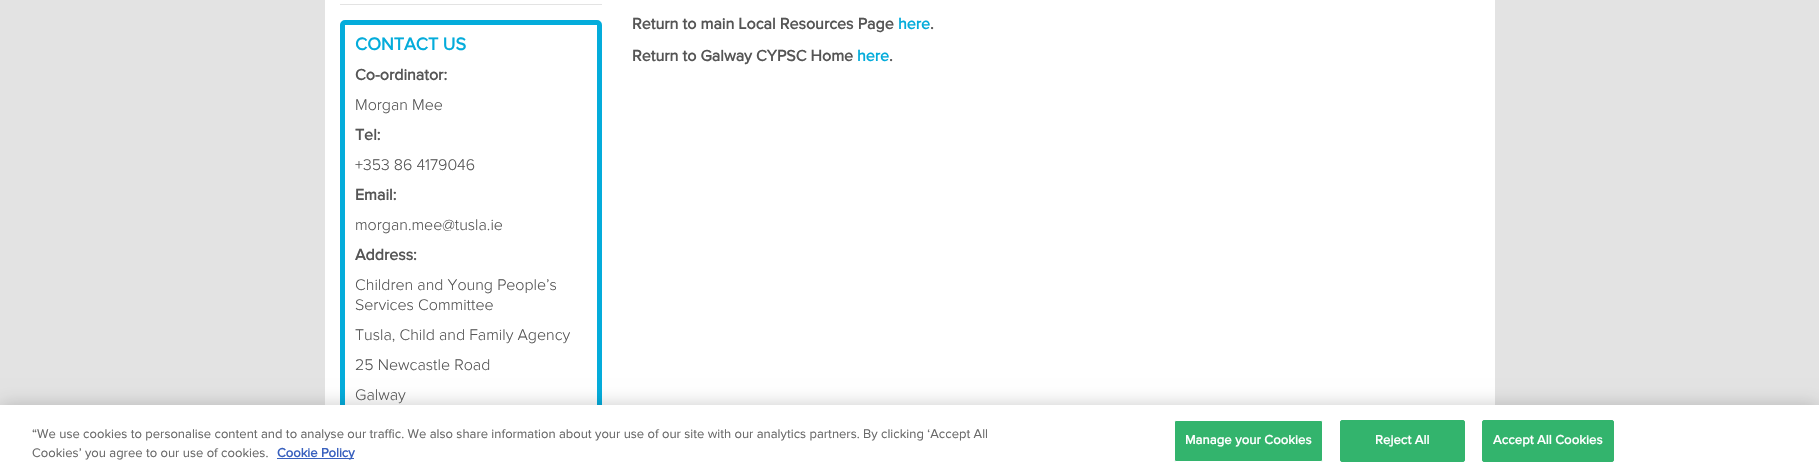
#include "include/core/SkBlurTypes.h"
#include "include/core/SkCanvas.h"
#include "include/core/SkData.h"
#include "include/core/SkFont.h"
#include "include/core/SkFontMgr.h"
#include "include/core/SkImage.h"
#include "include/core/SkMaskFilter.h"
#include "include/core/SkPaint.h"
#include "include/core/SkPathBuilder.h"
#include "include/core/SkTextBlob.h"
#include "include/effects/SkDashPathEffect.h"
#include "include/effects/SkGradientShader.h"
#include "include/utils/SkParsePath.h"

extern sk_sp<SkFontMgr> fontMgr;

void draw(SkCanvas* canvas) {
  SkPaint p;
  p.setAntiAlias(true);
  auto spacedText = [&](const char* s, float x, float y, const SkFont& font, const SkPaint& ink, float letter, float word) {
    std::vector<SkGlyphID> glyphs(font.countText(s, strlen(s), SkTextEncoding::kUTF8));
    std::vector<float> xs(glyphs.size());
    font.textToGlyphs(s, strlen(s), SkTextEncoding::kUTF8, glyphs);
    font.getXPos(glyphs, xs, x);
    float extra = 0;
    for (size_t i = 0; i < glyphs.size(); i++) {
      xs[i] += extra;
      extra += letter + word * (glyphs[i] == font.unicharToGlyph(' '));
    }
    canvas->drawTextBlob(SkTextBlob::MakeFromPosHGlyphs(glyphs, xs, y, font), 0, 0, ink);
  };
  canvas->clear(SkColorSetRGB(227, 227, 227));
  p.setColor(SK_ColorWHITE);
  canvas->drawRect(SkRect::MakeLTRB(325, 0, 1495, 405), p);
  p.setColor(SkColorSetRGB(227, 227, 227));
  canvas->drawRect(SkRect::MakeLTRB(340, 4, 602, 5), p);
  p.setStyle(SkPaint::kStroke_Style);
  p.setStrokeWidth(5);
  p.setColor(SkColorSetRGB(4, 172, 219));
  canvas->drawRoundRect(SkRect::MakeLTRB(342.5f, 22.5f, 599.5f, 447.5f), 2.5f, 2.5f, p);
  p.setStyle(SkPaint::kFill_Style);
  p.setColor(SkColorSetARGB(51, 0, 0, 0));
  p.setMaskFilter(SkMaskFilter::MakeBlur(kNormal_SkBlurStyle, 9));
  canvas->drawRect(SkRect::MakeLTRB(0, 405, 1819, 474), p);
  p.setMaskFilter(nullptr);
  p.setColor(SK_ColorWHITE);
  canvas->drawRect(SkRect::MakeLTRB(0, 405, 1819, 474), p);
  p.setColor(SkColorSetRGB(56, 96, 190));
  canvas->drawRect(SkRect::MakeLTRB(277, 458, 354, 459), p);
  p.setColor(SkColorSetRGB(51, 180, 109));
  canvas->drawRoundRect(SkRect::MakeLTRB(1174.5f, 420.5f, 1322.5f, 461.5f), 1.5f, 1.5f, p);
  p.setStyle(SkPaint::kStroke_Style);
  p.setStrokeWidth(1);
  p.setColor(SK_ColorWHITE);
  canvas->drawRoundRect(SkRect::MakeLTRB(1174.5f, 420.5f, 1322.5f, 461.5f), 1.5f, 1.5f, p);
  p.setStyle(SkPaint::kFill_Style);
  p.setColor(SkColorSetRGB(51, 180, 109));
  canvas->drawRoundRect(SkRect::MakeLTRB(1340.5f, 420.5f, 1464.5f, 461.5f), 1.5f, 1.5f, p);
  p.setStyle(SkPaint::kStroke_Style);
  canvas->drawRoundRect(SkRect::MakeLTRB(1340.5f, 420.5f, 1464.5f, 461.5f), 1.5f, 1.5f, p);
  p.setStyle(SkPaint::kFill_Style);
  canvas->drawRoundRect(SkRect::MakeLTRB(1482.5f, 420.5f, 1613.5f, 461.5f), 1.5f, 1.5f, p);
  p.setStyle(SkPaint::kStroke_Style);
  canvas->drawRoundRect(SkRect::MakeLTRB(1482.5f, 420.5f, 1613.5f, 461.5f), 1.5f, 1.5f, p);
  SkFont font1(fontMgr->matchFamilyStyle("Proxima Nova", SkFontStyle::Bold()), 18);
  font1.setSubpixel(true);
  p.setStyle(SkPaint::kFill_Style);
  p.setColor(SkColorSetRGB(4, 172, 219));
  canvas->drawString("CONTACT US", 355, 50, font1, p);
  SkFont font2(fontMgr->matchFamilyStyle("Proxima Nova", SkFontStyle::Bold()), 16);
  font2.setSubpixel(true);
  p.setColor(SkColorSetRGB(85, 85, 85));
  canvas->drawString("Co-ordinator:", 355, 80, font2, p);
  SkFont font3(fontMgr->matchFamilyStyle("Proxima Nova", SkFontStyle(300, SkFontStyle::kNormal_Width, SkFontStyle::kUpright_Slant)), 16);
  font3.setSubpixel(true);
  canvas->drawString("Morgan Mee", 355, 110, font3, p);
  canvas->drawString("Tel:", 355, 140, font2, p);
  canvas->drawString("+353 86 4179046", 355, 170, font3, p);
  canvas->drawString("Email:", 355, 200, font2, p);
  canvas->drawString("morgan.mee@tusla.ie", 355, 230, font3, p);
  canvas->drawString("Address:", 355, 260, font2, p);
  canvas->drawString("Children and Young People’s", 355, 290, font3, p);
  canvas->drawString("Services Committee", 355, 310, font3, p);
  canvas->drawString("Tusla, Child and Family Agency", 355, 340, font3, p);
  canvas->drawString("25 Newcastle Road", 355, 370, font3, p);
  canvas->drawString("Galway", 355, 400, font3, p);
  canvas->drawString("Return to main Local Resources Page", 632, 29, font2, p);
  p.setColor(SkColorSetRGB(4, 172, 219));
  canvas->drawString("here", 898, 29, font2, p);
  p.setColor(SkColorSetRGB(85, 85, 85));
  canvas->drawString(".", 930, 29, font2, p);
  canvas->drawString("Return to Galway CYPSC Home", 632, 61, font2, p);
  p.setColor(SkColorSetRGB(4, 172, 219));
  canvas->drawString("here", 857, 61, font2, p);
  p.setColor(SkColorSetRGB(85, 85, 85));
  canvas->drawString(".", 889, 61, font2, p);
  SkFont font4(fontMgr->matchFamilyStyle("Proxima Nova", SkFontStyle::Normal()), 13);
  font4.setSubpixel(true);
  p.setColor(SkColorSetRGB(105, 105, 105));
  canvas->drawString("“We use cookies to personalise content and to analyse our traffic. We also share information about your use of our site with our analytics partners. By clicking ‘Accept All", 32, 438, font4, p);
  canvas->drawString("Cookies’ you agree to our use of cookies.", 32, 457, font4, p);
  SkFont font5(fontMgr->matchFamilyStyle("Proxima Nova", SkFontStyle::Bold()), 13);
  font5.setSubpixel(true);
  p.setColor(SkColorSetRGB(56, 96, 190));
  canvas->drawString("Cookie Policy", 277, 457, font5, p);
  p.setColor(SK_ColorWHITE);
  spacedText("Manage your Cookies", 1185, 444, font5, p, 0.1f, 0);
  spacedText("Reject All", 1375, 444, font5, p, 0.1f, 0);
  spacedText("Accept All Cookies", 1493, 444, font5, p, 0.1f, 0);
}
